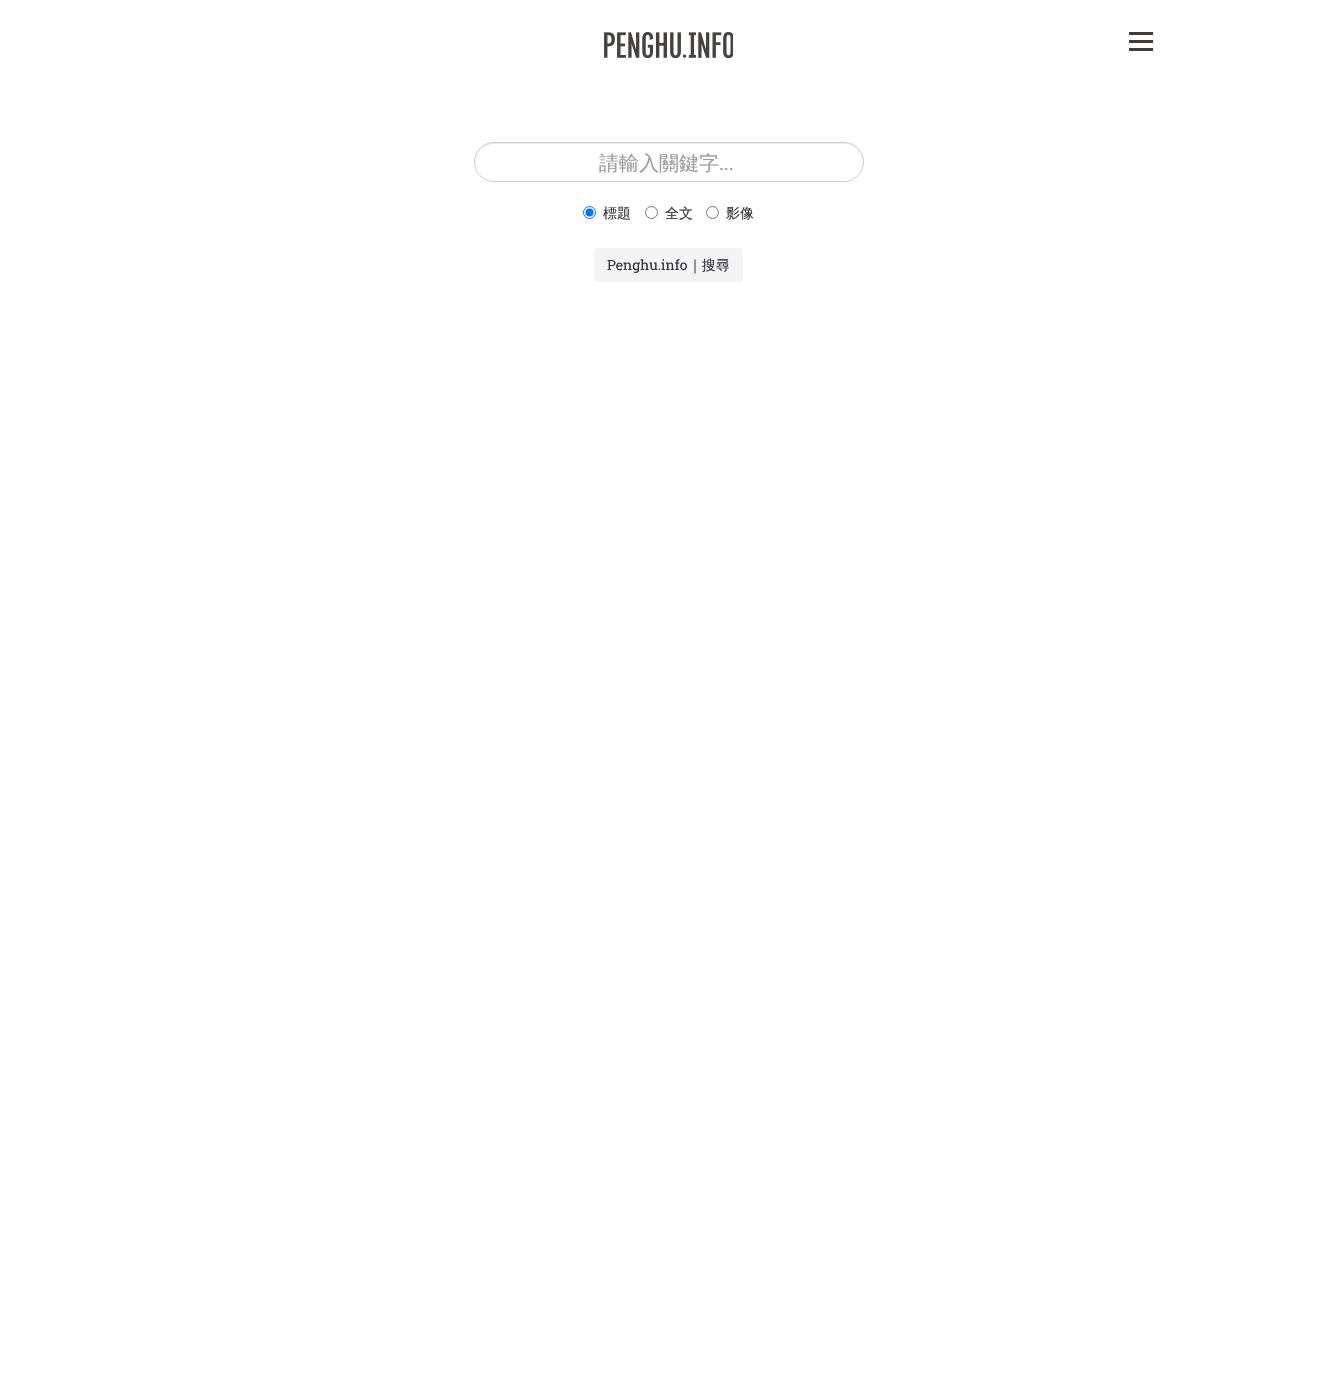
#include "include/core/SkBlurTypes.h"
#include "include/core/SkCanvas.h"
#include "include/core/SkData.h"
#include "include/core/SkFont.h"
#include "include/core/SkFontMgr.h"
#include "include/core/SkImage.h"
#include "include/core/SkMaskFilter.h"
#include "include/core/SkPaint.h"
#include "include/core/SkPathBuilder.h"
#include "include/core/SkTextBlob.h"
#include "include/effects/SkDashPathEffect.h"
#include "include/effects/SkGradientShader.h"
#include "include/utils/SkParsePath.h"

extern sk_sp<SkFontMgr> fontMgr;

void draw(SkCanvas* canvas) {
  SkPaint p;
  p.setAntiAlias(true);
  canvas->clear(SK_ColorWHITE);
  canvas->drawImageRect(SkImages::DeferredFromEncodedData(SkData::MakeFromFileName("images/1.png")), SkRect::MakeLTRB(604, 32, 733, 58), SkSamplingOptions());
  p.setColor(SkColorSetRGB(65, 59, 58));
  canvas->drawRect(SkRect::MakeLTRB(1129, 32, 1153, 35), p);
  canvas->drawRect(SkRect::MakeLTRB(1129, 40, 1153, 43), p);
  canvas->drawRect(SkRect::MakeLTRB(1129, 48, 1153, 51), p);
  p.setColor(SkColorSetRGB(236, 236, 236));
  canvas->drawPath(SkPathBuilder().moveTo(494, 144).lineTo(844, 144).cubicTo(854, 144, 863, 153, 863, 163).cubicTo(863, 152, 855, 143, 844, 143).lineTo(494, 143).cubicTo(483, 143, 475, 152, 475, 163).cubicTo(475, 153, 484, 144, 494, 144).close().detach(), p);
  p.setStyle(SkPaint::kStroke_Style);
  p.setStrokeWidth(1);
  p.setColor(SkColorSetRGB(204, 204, 204));
  canvas->drawRoundRect(SkRect::MakeLTRB(474.5f, 142.5f, 863.5f, 181.5f), 19.5f, 19.5f, p);
  p.setColor(SkColorSetRGB(0, 117, 255));
  canvas->drawCircle(589.5f, 212.5f, 6, p);
  p.setStyle(SkPaint::kFill_Style);
  canvas->drawCircle(589.5f, 212.5f, 4, p);
  p.setStyle(SkPaint::kStroke_Style);
  p.setColor(SkColorSetRGB(118, 118, 118));
  canvas->drawCircle(651.5f, 212.5f, 6, p);
  canvas->drawCircle(712.5f, 212.5f, 6, p);
  p.setStyle(SkPaint::kFill_Style);
  p.setColor(SkColorSetRGB(244, 244, 247));
  canvas->drawRoundRect(SkRect::MakeLTRB(594, 248, 743, 282), 4, 4, p);
  SkFont font1(fontMgr->matchFamilyStyle("WenQuanYi Zen Hei", SkFontStyle(500, SkFontStyle::kNormal_Width, SkFontStyle::kUpright_Slant)), 20);
  font1.setSubpixel(true);
  p.setColor(SkColorSetRGB(153, 153, 153));
  canvas->drawString("請輸入關鍵字", 599, 170, font1, p);
  SkFont font2(fontMgr->matchFamilyStyle("Roboto Slab", SkFontStyle::Normal()), 20);
  font2.setSubpixel(true);
  canvas->drawString("...", 719, 170, font2, p);
  SkFont font3(fontMgr->matchFamilyStyle("WenQuanYi Zen Hei", SkFontStyle(500, SkFontStyle::kNormal_Width, SkFontStyle::kUpright_Slant)), 14);
  font3.setSubpixel(true);
  p.setColor(SkColorSetRGB(51, 51, 51));
  canvas->drawString("標題", 603, 218, font3, p);
  canvas->drawString("全文", 665, 218, font3, p);
  canvas->drawString("影像", 726, 218, font3, p);
  SkFont font4(fontMgr->matchFamilyStyle("Roboto Slab", SkFontStyle::Normal()), 14);
  font4.setSubpixel(true);
  canvas->drawString("Penghu.info", 607, 270, font4, p);
  canvas->drawString("｜搜尋", 688, 270, font3, p);
}
